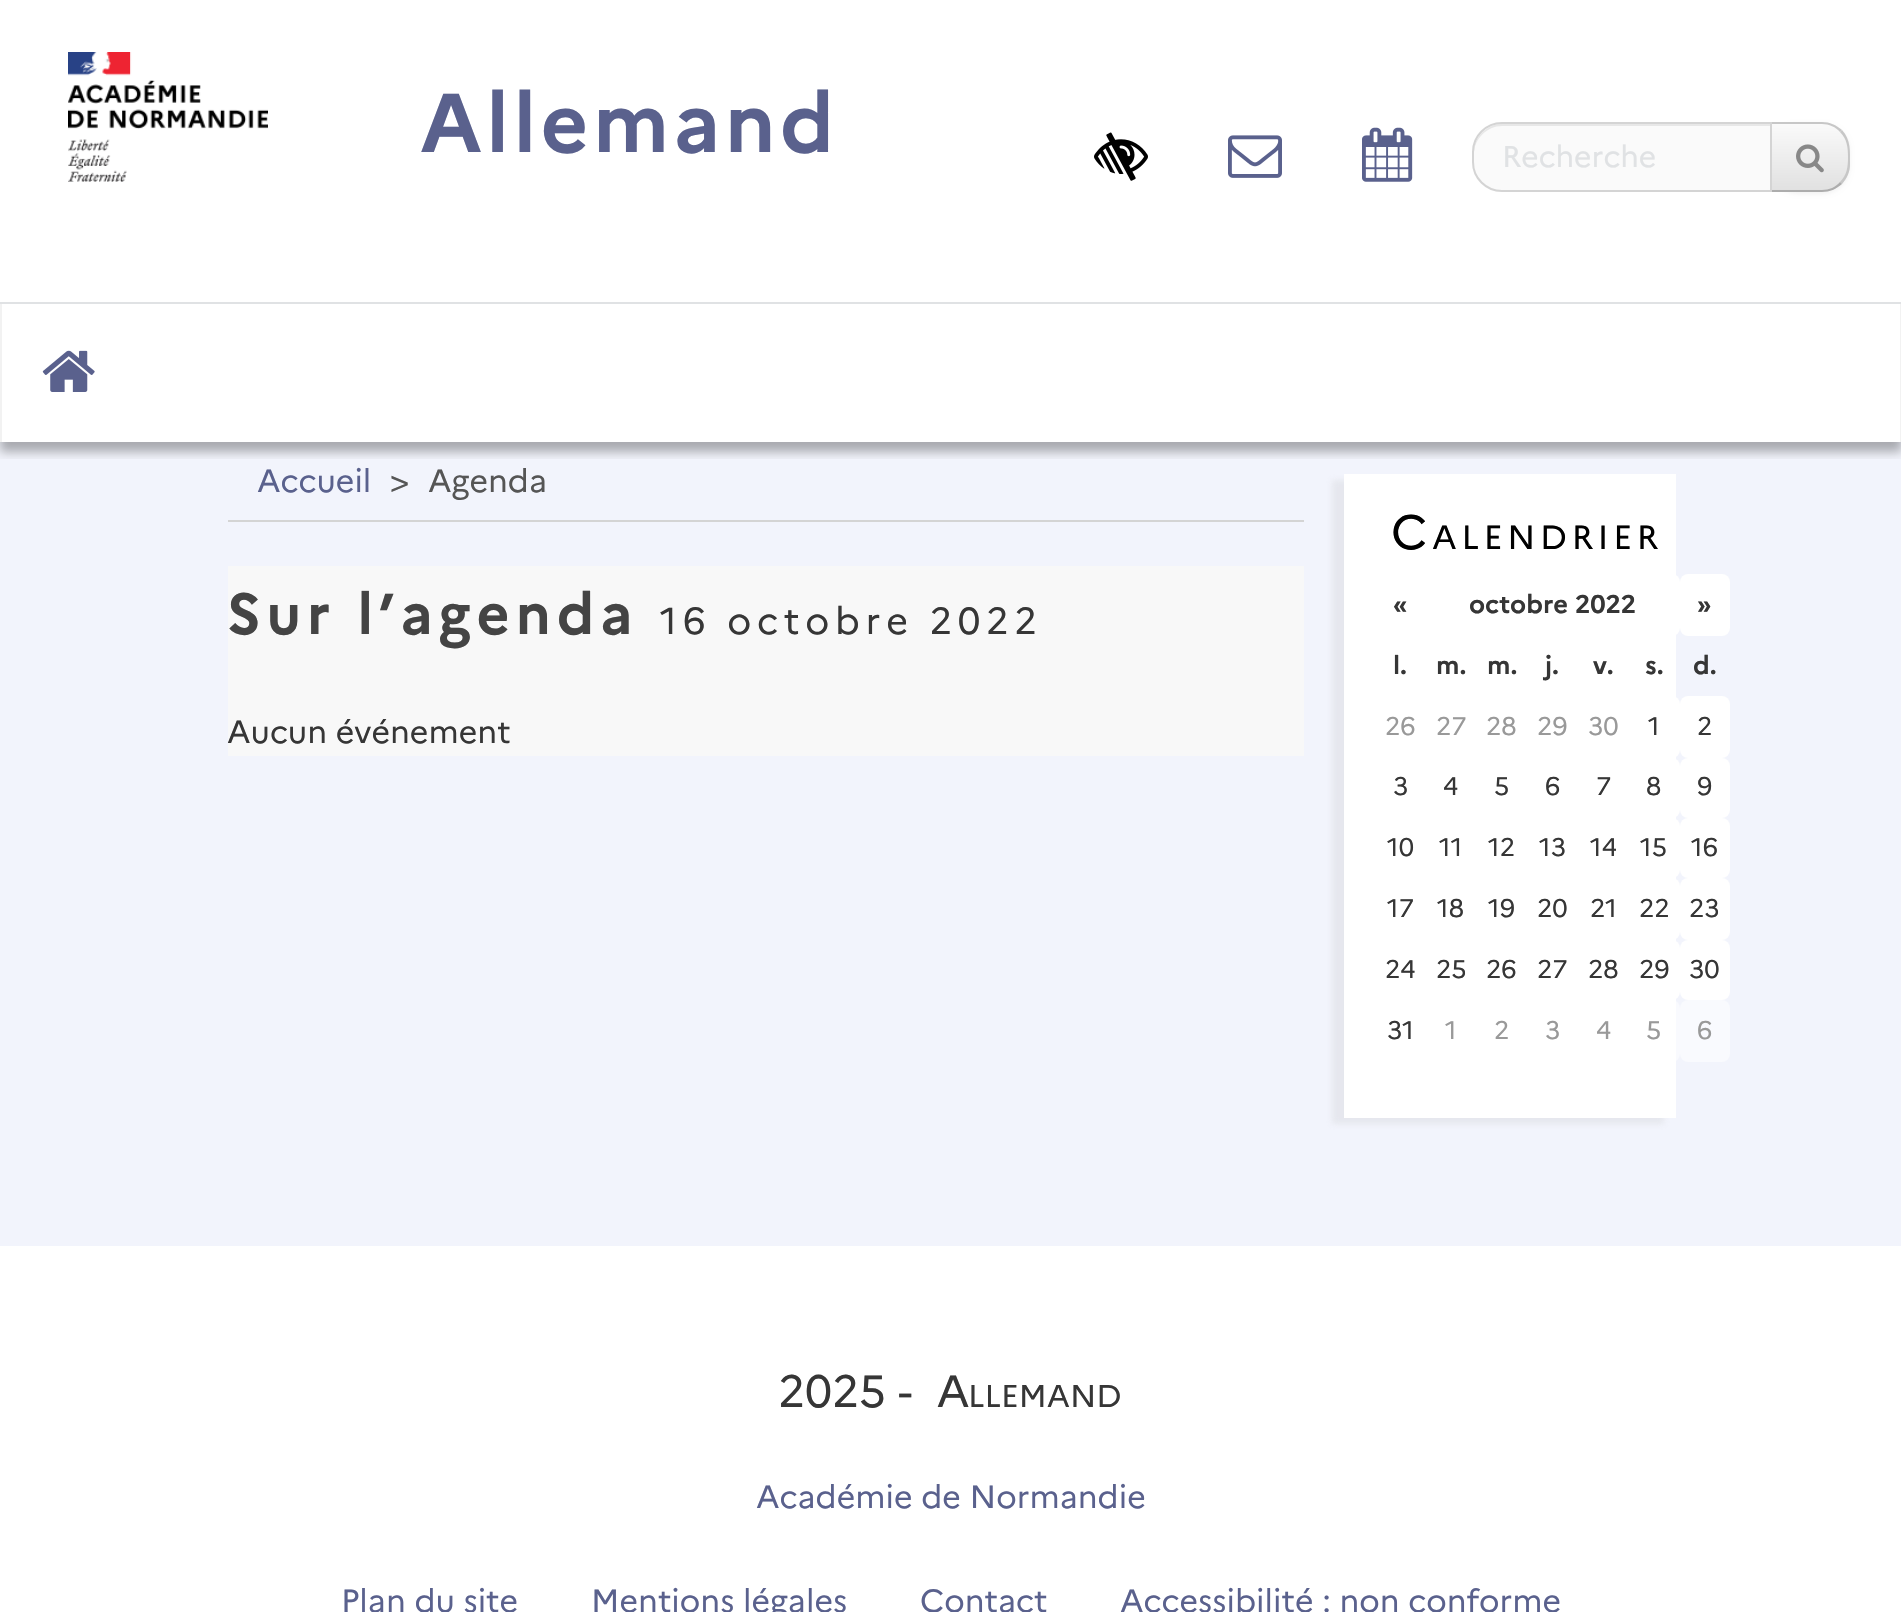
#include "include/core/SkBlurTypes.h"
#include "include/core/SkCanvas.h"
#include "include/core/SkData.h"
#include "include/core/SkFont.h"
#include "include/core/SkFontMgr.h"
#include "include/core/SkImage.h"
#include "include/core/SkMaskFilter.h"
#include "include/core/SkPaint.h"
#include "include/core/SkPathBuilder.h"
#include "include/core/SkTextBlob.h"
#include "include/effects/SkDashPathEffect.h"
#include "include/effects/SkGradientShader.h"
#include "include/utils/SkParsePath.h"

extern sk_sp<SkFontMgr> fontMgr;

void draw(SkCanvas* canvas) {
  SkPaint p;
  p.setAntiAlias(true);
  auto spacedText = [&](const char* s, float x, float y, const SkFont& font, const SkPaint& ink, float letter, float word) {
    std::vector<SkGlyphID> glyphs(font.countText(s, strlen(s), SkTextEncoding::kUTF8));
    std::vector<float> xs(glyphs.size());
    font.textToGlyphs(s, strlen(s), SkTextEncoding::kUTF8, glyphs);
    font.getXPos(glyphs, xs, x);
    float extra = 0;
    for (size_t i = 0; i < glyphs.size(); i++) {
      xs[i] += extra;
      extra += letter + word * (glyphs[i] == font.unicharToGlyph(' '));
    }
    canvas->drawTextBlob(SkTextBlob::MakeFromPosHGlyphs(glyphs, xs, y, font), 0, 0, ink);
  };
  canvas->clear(SkColorSetRGB(242, 244, 252));
  p.setColor(SK_ColorWHITE);
  canvas->drawRect(SkRect::MakeLTRB(0, 0, 1901, 442), p);
  canvas->drawImageRect(SkImages::DeferredFromEncodedData(SkData::MakeFromFileName("images/1.png")), SkRect::MakeLTRB(68, 52, 268, 182), SkSamplingOptions());
  p.setColor(SkColorSetRGB(224, 226, 228));
  canvas->drawRect(SkRect::MakeLTRB(0, 302, 1901, 304), p);
  canvas->save();
  canvas->clipRect(SkRect::MakeLTRB(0, 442, 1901, 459));
  p.setColor(SkColorSetARGB(77, 0, 0, 0));
  p.setMaskFilter(SkMaskFilter::MakeBlur(kNormal_SkBlurStyle, 5));
  canvas->drawRect(SkRect::MakeLTRB(0, 314, 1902, 452), p);
  p.setMaskFilter(nullptr);
  canvas->restore();
  p.setColor(SkColorSetRGB(242, 242, 242));
  canvas->drawRect(SkRect::MakeLTRB(1900, 304, 1901, 442), p);
  canvas->drawRect(SkRect::MakeLTRB(0, 304, 2, 442), p);
  canvas->drawImageRect(SkImages::DeferredFromEncodedData(SkData::MakeFromFileName("images/2.png")), SkRect::MakeLTRB(1094, 132, 1148, 181), SkSamplingOptions());
  canvas->drawImageRect(SkImages::DeferredFromEncodedData(SkData::MakeFromFileName("images/3.png")), SkRect::MakeLTRB(1228, 135, 1282, 178), SkSamplingOptions());
  canvas->drawImageRect(SkImages::DeferredFromEncodedData(SkData::MakeFromFileName("images/4.png")), SkRect::MakeLTRB(1362, 127, 1413, 182), SkSamplingOptions());
  p.setColor(SkColorSetARGB(13, 0, 0, 0));
  p.setMaskFilter(SkMaskFilter::MakeBlur(kNormal_SkBlurStyle, 2));
  canvas->drawRoundRect(SkRect::MakeLTRB(1770, 124, 1850, 194), 28, 28, p);
  p.setMaskFilter(nullptr);
  canvas->save();
  canvas->clipPath(SkPathBuilder().moveTo(1770, 122).lineTo(1822, 122).cubicTo(1837.5f, 122, 1850, 134.5f, 1850, 150).lineTo(1850, 164).cubicTo(1850, 179.5f, 1837.5f, 192, 1822, 192).lineTo(1770, 192).close().detach(), true);
  {
    const SkColor colors[] = {SkColorSetRGB(250, 250, 250), SkColorSetRGB(225, 225, 225)};
    const float stops[] = {0, 1};
    const SkPoint ends[] = {{1810, 124}, {1810, 190}};
    p.setShader(SkGradientShader::MakeLinear(ends, colors, stops, 2, SkTileMode::kClamp));
    p.setAlpha(255);
  }
  canvas->drawRect(SkRect::MakeLTRB(1772, 124, 1850, 190), p);
  canvas->restore();
  p.setShader(nullptr);
  p.setColor(SkColorSetRGB(199, 199, 199));
  canvas->drawPath(SkPathBuilder().moveTo(1770, 122).lineTo(1772, 124).lineTo(1822, 124).cubicTo(1829, 124, 1836, 127, 1840, 132).lineTo(1842, 130).cubicTo(1836, 125, 1830, 122, 1822, 122).close().detach(), p);
  canvas->drawPath(SkPathBuilder().moveTo(1850, 164).cubicTo(1850, 151, 1851, 140, 1842, 130).lineTo(1840, 132).cubicTo(1847, 139, 1848, 147, 1848, 157).cubicTo(1848, 167, 1847, 175, 1840, 182).lineTo(1842, 184).cubicTo(1847, 178, 1850, 172, 1850, 164).close().detach(), p);
  p.setColor(SkColorSetRGB(173, 173, 173));
  canvas->drawPath(SkPathBuilder().moveTo(1822, 192).cubicTo(1830, 192, 1836, 189, 1842, 184).lineTo(1840, 182).cubicTo(1836, 187, 1829, 190, 1822, 190).lineTo(1772, 190).lineTo(1770, 192).close().detach(), p);
  p.setColor(SkColorSetRGB(250, 250, 250));
  canvas->drawPath(SkPathBuilder().moveTo(1502, 122).lineTo(1772, 122).lineTo(1772, 192).lineTo(1502, 192).cubicTo(1485.5f, 192, 1472, 178.5f, 1472, 162).lineTo(1472, 152).cubicTo(1472, 135.5f, 1485.5f, 122, 1502, 122).close().detach(), p);
  p.setColor(SkColorSetRGB(231, 231, 231));
  canvas->drawPath(SkPathBuilder().moveTo(1502, 126).lineTo(1770, 126).lineTo(1770, 124).lineTo(1502, 124).cubicTo(1487, 124, 1474, 137, 1474, 152).lineTo(1474, 154).cubicTo(1474, 139, 1487, 126, 1502, 126).close().detach(), p);
  p.setStyle(SkPaint::kStroke_Style);
  p.setStrokeWidth(2);
  p.setColor(SkColorSetRGB(212, 212, 212));
  canvas->drawPath(SkPathBuilder().moveTo(1502, 123).lineTo(1771, 123).lineTo(1771, 191).lineTo(1502, 191).cubicTo(1486, 191, 1473, 178, 1473, 162).lineTo(1473, 152).cubicTo(1473, 136, 1486, 123, 1502, 123).close().detach(), p);
  canvas->drawImageRect(SkImages::DeferredFromEncodedData(SkData::MakeFromFileName("images/5.png")), SkRect::MakeLTRB(1796, 144, 1824, 173), SkSamplingOptions());
  canvas->drawImageRect(SkImages::DeferredFromEncodedData(SkData::MakeFromFileName("images/6.png")), SkRect::MakeLTRB(42, 350, 95, 392), SkSamplingOptions());
  p.setStyle(SkPaint::kFill_Style);
  canvas->drawRect(SkRect::MakeLTRB(228, 520, 1304, 522), p);
  p.setColor(SkColorSetRGB(248, 248, 248));
  canvas->drawRect(SkRect::MakeLTRB(228, 566, 1304, 756), p);
  p.setColor(SkColorSetARGB(51, 180, 180, 180));
  p.setMaskFilter(SkMaskFilter::MakeBlur(kNormal_SkBlurStyle, 3));
  canvas->drawRect(SkRect::MakeLTRB(1332, 480, 1664, 1124), p);
  p.setMaskFilter(nullptr);
  p.setColor(SK_ColorWHITE);
  canvas->drawRect(SkRect::MakeLTRB(1344, 474, 1676, 1118), p);
  canvas->drawRoundRect(SkRect::MakeLTRB(1426, 574, 1680, 636), 8, 8, p);
  canvas->drawRoundRect(SkRect::MakeLTRB(1680, 574, 1730, 636), 8, 8, p);
  canvas->drawRoundRect(SkRect::MakeLTRB(1628, 696, 1680, 758), 8, 8, p);
  canvas->drawRoundRect(SkRect::MakeLTRB(1680, 696, 1730, 758), 8, 8, p);
  canvas->drawRoundRect(SkRect::MakeLTRB(1628, 758, 1680, 818), 8, 8, p);
  canvas->drawRoundRect(SkRect::MakeLTRB(1680, 758, 1730, 818), 8, 8, p);
  canvas->drawRoundRect(SkRect::MakeLTRB(1628, 818, 1680, 878), 8, 8, p);
  canvas->drawRoundRect(SkRect::MakeLTRB(1680, 818, 1730, 878), 8, 8, p);
  canvas->drawRoundRect(SkRect::MakeLTRB(1628, 878, 1680, 940), 8, 8, p);
  canvas->drawRoundRect(SkRect::MakeLTRB(1680, 878, 1730, 940), 8, 8, p);
  canvas->drawRoundRect(SkRect::MakeLTRB(1628, 940, 1680, 1000), 8, 8, p);
  canvas->drawRoundRect(SkRect::MakeLTRB(1680, 940, 1730, 1000), 8, 8, p);
  p.setColor(SkColorSetARGB(128, 255, 255, 255));
  canvas->drawRoundRect(SkRect::MakeLTRB(1628, 1000, 1680, 1062), 8, 8, p);
  p.setColor(SkColorSetRGB(249, 250, 254));
  canvas->drawRoundRect(SkRect::MakeLTRB(1680, 1000, 1730, 1062), 8, 8, p);
  p.setColor(SK_ColorWHITE);
  canvas->drawRect(SkRect::MakeLTRB(0, 1246, 1901, 1612), p);
  SkFont font1(fontMgr->matchFamilyStyle("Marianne", SkFontStyle::Bold()), 83.25f);
  font1.setSubpixel(true);
  p.setColor(SkColorSetRGB(90, 97, 141));
  spacedText("Allemand", 420, 152, font1, p, 4, 0);
  SkFont font2(fontMgr->matchFamilyStyle("Marianne", SkFontStyle::Normal()), 30);
  font2.setSubpixel(true);
  p.setColor(SkColorSetRGB(224, 226, 228));
  canvas->drawString("Recherche", 1502, 167, font2, p);
  SkFont font3(fontMgr->matchFamilyStyle("Marianne", SkFontStyle::Normal()), 32);
  font3.setSubpixel(true);
  p.setColor(SkColorSetRGB(90, 97, 141));
  canvas->drawString("Accueil", 257, 492, font3, p);
  p.setColor(SkColorSetRGB(85, 85, 85));
  canvas->drawString(">", 390, 492, font3, p);
  canvas->drawString("Agenda", 428, 492, font3, p);
  SkFont font4(fontMgr->matchFamilyStyle("Marianne", SkFontStyle::Bold()), 57.5f);
  font4.setSubpixel(true);
  p.setColor(SkColorSetRGB(68, 68, 68));
  spacedText("Sur l’agenda", 227, 634, font4, p, 5.75f, 0);
  SkFont font5(fontMgr->matchFamilyStyle("Marianne", SkFontStyle::Normal()), 37.5f);
  font5.setSubpixel(true);
  p.setColor(SkColorSetRGB(54, 54, 54));
  spacedText("16 octobre 2022", 660, 634, font5, p, 5.75f, 0);
  canvas->drawString("Aucun événement", 227, 743, font3, p);
  SkFont font6(fontMgr->matchFamilyStyle("Marianne", SkFontStyle::Normal()), 48);
  font6.setSubpixel(true);
  p.setColor(SK_ColorBLACK);
  spacedText("C", 1391, 549, font6, p, 4.75f, 0);
  SkFont font7(fontMgr->matchFamilyStyle("Marianne", SkFontStyle::Normal()), 33.5f);
  font7.setSubpixel(true);
  spacedText("ALENDRIER", 1432, 549, font7, p, 4.75f, 0);
  SkFont font8(fontMgr->matchFamilyStyle("Marianne", SkFontStyle::Bold()), 25.5f);
  font8.setSubpixel(true);
  p.setColor(SkColorSetRGB(54, 54, 54));
  canvas->drawString("«", 1393, 613, font8, p);
  canvas->drawString("octobre 2022", 1469, 613, font8, p);
  canvas->drawString("»", 1697, 613, font8, p);
  canvas->drawString("l.", 1393, 674, font8, p);
  canvas->drawString("m.", 1436, 674, font8, p);
  canvas->drawString("m.", 1487, 674, font8, p);
  canvas->drawString("j.", 1545, 674, font8, p);
  canvas->drawString("v.", 1593, 674, font8, p);
  canvas->drawString("s.", 1645, 674, font8, p);
  canvas->drawString("d.", 1693, 674, font8, p);
  SkFont font9(fontMgr->matchFamilyStyle("Marianne", SkFontStyle::Normal()), 25.5f);
  font9.setSubpixel(true);
  p.setColor(SkColorSetRGB(153, 153, 153));
  canvas->drawString("26", 1385, 735, font9, p);
  canvas->drawString("27", 1436, 735, font9, p);
  canvas->drawString("28", 1486, 735, font9, p);
  canvas->drawString("29", 1537, 735, font9, p);
  canvas->drawString("30", 1588, 735, font9, p);
  p.setColor(SkColorSetRGB(54, 54, 54));
  canvas->drawString("1", 1648, 735, font9, p);
  canvas->drawString("2", 1697, 735, font9, p);
  canvas->drawString("3", 1393, 795, font9, p);
  canvas->drawString("4", 1443, 795, font9, p);
  canvas->drawString("5", 1494, 795, font9, p);
  canvas->drawString("6", 1545, 795, font9, p);
  canvas->drawString("7", 1596, 795, font9, p);
  canvas->drawString("8", 1646, 795, font9, p);
  canvas->drawString("9", 1697, 795, font9, p);
  canvas->drawString("10", 1387, 856, font9, p);
  canvas->drawString("11", 1439, 856, font9, p);
  canvas->drawString("12", 1488, 856, font9, p);
  canvas->drawString("13", 1539, 856, font9, p);
  canvas->drawString("14", 1590, 856, font9, p);
  canvas->drawString("15", 1640, 856, font9, p);
  canvas->drawString("16", 1691, 856, font9, p);
  canvas->drawString("17", 1387, 917, font9, p);
  canvas->drawString("18", 1437, 917, font9, p);
  canvas->drawString("19", 1488, 917, font9, p);
  canvas->drawString("20", 1537, 917, font9, p);
  canvas->drawString("21", 1590, 917, font9, p);
  canvas->drawString("22", 1639, 917, font9, p);
  canvas->drawString("23", 1689, 917, font9, p);
  canvas->drawString("24", 1385, 978, font9, p);
  canvas->drawString("25", 1436, 978, font9, p);
  canvas->drawString("26", 1486, 978, font9, p);
  canvas->drawString("27", 1537, 978, font9, p);
  canvas->drawString("28", 1588, 978, font9, p);
  canvas->drawString("29", 1639, 978, font9, p);
  canvas->drawString("30", 1689, 978, font9, p);
  canvas->drawString("31", 1387, 1039, font9, p);
  p.setColor(SkColorSetRGB(153, 153, 153));
  canvas->drawString("1", 1445, 1039, font9, p);
  canvas->drawString("2", 1494, 1039, font9, p);
  canvas->drawString("3", 1545, 1039, font9, p);
  canvas->drawString("4", 1596, 1039, font9, p);
  canvas->drawString("5", 1646, 1039, font9, p);
  canvas->drawString("6", 1697, 1039, font9, p);
  SkFont font10(fontMgr->matchFamilyStyle("Marianne", SkFontStyle::Normal()), 45);
  font10.setSubpixel(true);
  p.setColor(SkColorSetRGB(54, 54, 54));
  canvas->drawString("2025 -  A", 778, 1407, font10, p);
  SkFont font11(fontMgr->matchFamilyStyle("Marianne", SkFontStyle::Normal()), 31.5f);
  font11.setSubpixel(true);
  canvas->drawString("LLEMAND", 968, 1407, font11, p);
  p.setColor(SkColorSetRGB(90, 97, 141));
  canvas->drawString("Académie de Normandie", 756, 1508, font3, p);
  canvas->drawString("Plan du site", 341, 1612, font3, p);
  canvas->drawString("Mentions légales", 591, 1612, font3, p);
  canvas->drawString("Contact", 920, 1612, font3, p);
  canvas->drawString("Accessibilité : non conforme", 1120, 1612, font3, p);
}
